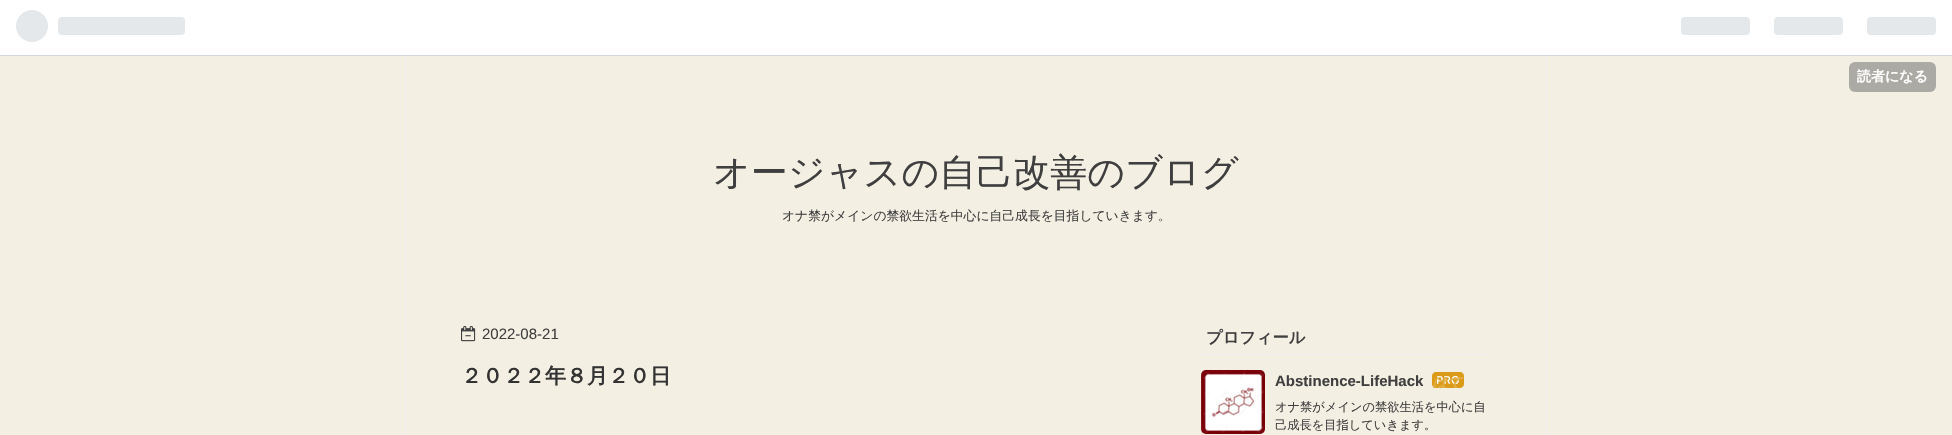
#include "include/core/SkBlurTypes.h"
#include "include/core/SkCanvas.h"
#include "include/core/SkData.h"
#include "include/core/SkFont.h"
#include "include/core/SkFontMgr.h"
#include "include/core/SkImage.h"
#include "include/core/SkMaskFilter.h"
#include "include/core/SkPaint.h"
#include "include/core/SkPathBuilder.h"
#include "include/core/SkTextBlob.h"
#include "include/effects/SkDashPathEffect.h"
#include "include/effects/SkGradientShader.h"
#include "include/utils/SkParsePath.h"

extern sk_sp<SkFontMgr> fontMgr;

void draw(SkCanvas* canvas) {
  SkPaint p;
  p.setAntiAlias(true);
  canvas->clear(SkColorSetRGB(244, 239, 227));
  p.setColor(SK_ColorWHITE);
  canvas->drawRect(SkRect::MakeLTRB(0, 0, 1952, 55), p);
  p.setColor(SkColorSetRGB(210, 216, 221));
  canvas->drawRect(SkRect::MakeLTRB(0, 55, 1952, 56), p);
  canvas->drawImageRect(SkImages::DeferredFromEncodedData(SkData::MakeFromFileName("images/1.png")), SkRect::MakeLTRB(16, 10, 185, 42), SkSamplingOptions());
  canvas->drawImageRect(SkImages::DeferredFromEncodedData(SkData::MakeFromFileName("images/2.png")), SkRect::MakeLTRB(1681, 17, 1936, 35), SkSamplingOptions());
  p.setColor(SkColorSetRGB(171, 170, 164));
  canvas->drawRoundRect(SkRect::MakeLTRB(1849, 62, 1936, 92), 6, 6, p);
  p.setColor(SkColorSetRGB(236, 238, 241));
  canvas->drawRect(SkRect::MakeLTRB(1546, 56, 1547, 435), p);
  canvas->drawRect(SkRect::MakeLTRB(405, 56, 406, 435), p);
  canvas->drawImageRect(SkImages::DeferredFromEncodedData(SkData::MakeFromFileName("images/3.png")), SkRect::MakeLTRB(461, 326, 476, 342), SkSamplingOptions());
  canvas->drawRect(SkRect::MakeLTRB(1201, 354, 1491, 355), p);
  canvas->drawImageRect(SkImages::DeferredFromEncodedData(SkData::MakeFromFileName("images/4.png")), SkRect::MakeLTRB(1201, 370, 1265, 434), SkSamplingOptions());
  canvas->drawImageRect(SkImages::DeferredFromEncodedData(SkData::MakeFromFileName("images/5.png")), SkRect::MakeLTRB(1432, 372, 1464, 388), SkSamplingOptions());
  SkFont font1(fontMgr->matchFamilyStyle("WenQuanYi Zen Hei", SkFontStyle::Bold()), 14);
  font1.setSubpixel(true);
  p.setColor(SK_ColorWHITE);
  canvas->drawString("読者になる", 1857, 81, font1, p);
  SkFont font2(fontMgr->matchFamilyStyle("WenQuanYi Zen Hei", SkFontStyle(500, SkFontStyle::kNormal_Width, SkFontStyle::kUpright_Slant)), 37);
  font2.setSubpixel(true);
  p.setColor(SkColorSetRGB(63, 63, 63));
  canvas->drawString("オージャスの自己改善のブログ", 713, 185, font2, p);
  SkFont font3(fontMgr->matchFamilyStyle("WenQuanYi Zen Hei", SkFontStyle(500, SkFontStyle::kNormal_Width, SkFontStyle::kUpright_Slant)), 12.8f);
  font3.setSubpixel(true);
  canvas->drawString("オナ禁がメインの禁欲生活を中心に自己成長を目指していきます。", 782, 220, font3, p);
  SkFont font4(fontMgr->matchFamilyStyle("Liberation Sans", SkFontStyle::Normal()), 15);
  font4.setSubpixel(true);
  canvas->drawString("2022-08-21", 482, 339, font4, p);
  SkFont font5(fontMgr->matchFamilyStyle("WenQuanYi Zen Hei", SkFontStyle::Bold()), 21);
  font5.setSubpixel(true);
  p.setColor(SkColorSetRGB(51, 51, 51));
  canvas->drawString("２０２２年８月２０日", 461, 383, font5, p);
  SkFont font6(fontMgr->matchFamilyStyle("WenQuanYi Zen Hei", SkFontStyle::Bold()), 16.25f);
  font6.setSubpixel(true);
  p.setColor(SkColorSetRGB(63, 63, 63));
  canvas->drawString("プロフィール", 1206, 343, font6, p);
  SkFont font7(fontMgr->matchFamilyStyle("Liberation Sans", SkFontStyle::Bold()), 15);
  font7.setSubpixel(true);
  canvas->drawString("Abstinence-LifeHack", 1275, 386, font7, p);
  canvas->save();
  canvas->clipRect(SkRect::MakeLTRB(1432, 372, 1464, 388));
  SkFont font8(fontMgr->matchFamilyStyle("WenQuanYi Zen Hei", SkFontStyle::BoldItalic()), 15);
  font8.setSubpixel(true);
  p.setColor(SkColorSetRGB(226, 176, 72));
  canvas->drawString("はて", 1432, 388, font8, p);
  canvas->restore();
  SkFont font9(fontMgr->matchFamilyStyle("WenQuanYi Zen Hei", SkFontStyle(500, SkFontStyle::kNormal_Width, SkFontStyle::kUpright_Slant)), 12.25f);
  font9.setSubpixel(true);
  p.setColor(SkColorSetRGB(63, 63, 63));
  canvas->drawString("オナ禁がメインの禁欲生活を中心に自", 1275, 411, font9, p);
  canvas->drawString("己成長を目指していきます。", 1275, 429, font9, p);
}
